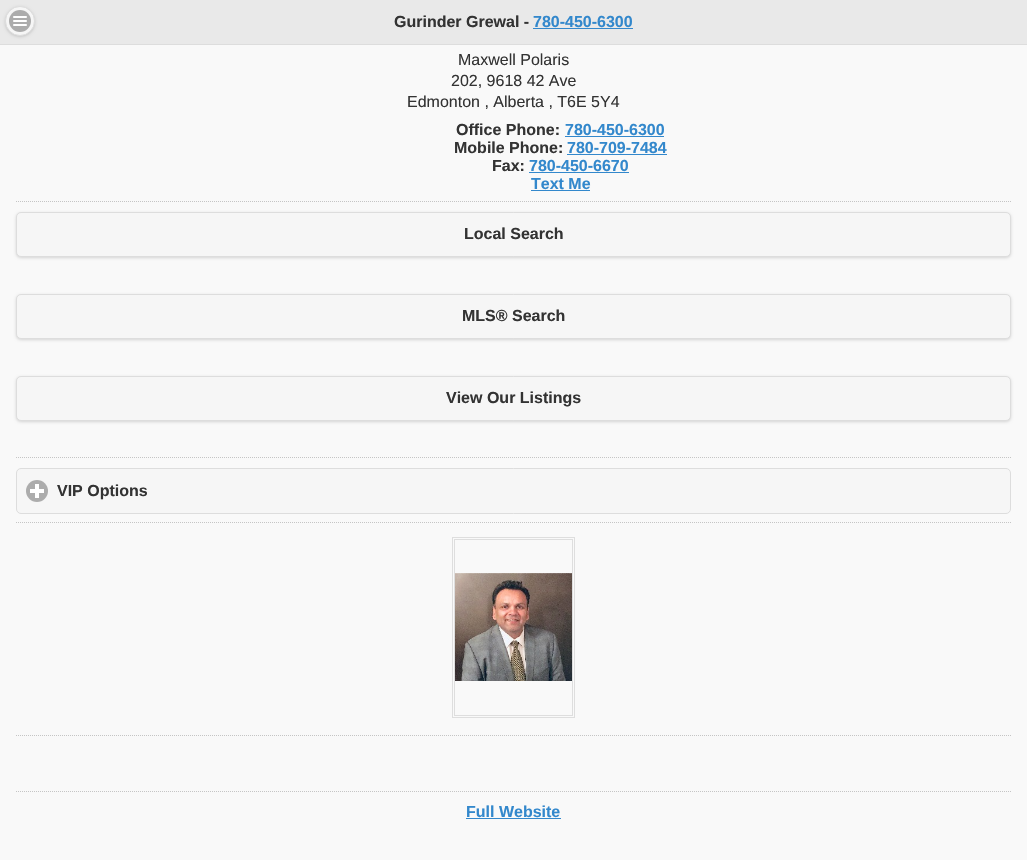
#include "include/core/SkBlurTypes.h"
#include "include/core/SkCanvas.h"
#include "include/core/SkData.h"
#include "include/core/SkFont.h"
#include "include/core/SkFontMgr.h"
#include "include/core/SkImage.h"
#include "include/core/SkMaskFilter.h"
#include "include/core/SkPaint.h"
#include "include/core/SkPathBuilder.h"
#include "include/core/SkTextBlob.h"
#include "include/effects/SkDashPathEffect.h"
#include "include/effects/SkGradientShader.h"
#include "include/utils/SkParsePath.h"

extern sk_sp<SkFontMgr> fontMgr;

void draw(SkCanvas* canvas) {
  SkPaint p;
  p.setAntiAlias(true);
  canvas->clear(SkColorSetRGB(249, 249, 249));
  p.setColor(SkColorSetRGB(233, 233, 233));
  canvas->drawRect(SkRect::MakeLTRB(0, 0, 1027, 44), p);
  p.setColor(SkColorSetRGB(221, 221, 221));
  canvas->drawRect(SkRect::MakeLTRB(0, 44, 1027, 45), p);
  p.setColor(SkColorSetARGB(38, 0, 0, 0));
  p.setMaskFilter(SkMaskFilter::MakeBlur(kNormal_SkBlurStyle, 1.5f));
  canvas->drawRoundRect(SkRect::MakeLTRB(5, 7, 35, 37), 15, 15, p);
  p.setMaskFilter(nullptr);
  p.setColor(SkColorSetRGB(246, 246, 246));
  canvas->drawCircle(20, 21, 14.5f, p);
  p.setStyle(SkPaint::kStroke_Style);
  p.setStrokeWidth(1);
  p.setColor(SkColorSetRGB(221, 221, 221));
  canvas->drawCircle(20, 21, 14.5f, p);
  p.setStyle(SkPaint::kFill_Style);
  p.setColor(SkColorSetRGB(172, 172, 172));
  canvas->drawCircle(20, 21, 11, p);
  canvas->drawImageRect(SkImages::DeferredFromEncodedData(SkData::MakeFromFileName("images/1.png")), SkRect::MakeLTRB(13, 16, 27, 26), SkSamplingOptions());
  p.setColor(SkColorSetRGB(51, 136, 204));
  canvas->drawRect(SkRect::MakeLTRB(533, 28, 633, 29), p);
  canvas->drawRect(SkRect::MakeLTRB(565, 136, 664, 137), p);
  canvas->drawRect(SkRect::MakeLTRB(567, 154, 667, 155), p);
  canvas->drawRect(SkRect::MakeLTRB(529, 172, 629, 173), p);
  canvas->drawRect(SkRect::MakeLTRB(531, 190, 590, 191), p);
  p.setStyle(SkPaint::kStroke_Style);
  p.setColor(SkColorSetRGB(197, 197, 197));
  p.setPathEffect(SkDashPathEffect::Make({{1, 1}}, 0));
  canvas->drawPath(SkPathBuilder().moveTo(16, 201.5f).lineTo(1011, 201.5f).detach(), p);
  p.setPathEffect(nullptr);
  p.setStyle(SkPaint::kFill_Style);
  p.setColor(SkColorSetARGB(38, 0, 0, 0));
  p.setMaskFilter(SkMaskFilter::MakeBlur(kNormal_SkBlurStyle, 1.5f));
  canvas->drawRoundRect(SkRect::MakeLTRB(16, 213, 1011, 258), 5, 5, p);
  p.setMaskFilter(nullptr);
  p.setColor(SkColorSetRGB(246, 246, 246));
  canvas->drawRoundRect(SkRect::MakeLTRB(16.5f, 212.5f, 1010.5f, 256.5f), 4.5f, 4.5f, p);
  p.setStyle(SkPaint::kStroke_Style);
  p.setColor(SkColorSetRGB(221, 221, 221));
  canvas->drawRoundRect(SkRect::MakeLTRB(16.5f, 212.5f, 1010.5f, 256.5f), 4.5f, 4.5f, p);
  p.setStyle(SkPaint::kFill_Style);
  p.setColor(SkColorSetARGB(38, 0, 0, 0));
  p.setMaskFilter(SkMaskFilter::MakeBlur(kNormal_SkBlurStyle, 1.5f));
  canvas->drawRoundRect(SkRect::MakeLTRB(16, 295, 1011, 340), 5, 5, p);
  p.setMaskFilter(nullptr);
  p.setColor(SkColorSetRGB(246, 246, 246));
  canvas->drawRoundRect(SkRect::MakeLTRB(16.5f, 294.5f, 1010.5f, 338.5f), 4.5f, 4.5f, p);
  p.setStyle(SkPaint::kStroke_Style);
  p.setColor(SkColorSetRGB(221, 221, 221));
  canvas->drawRoundRect(SkRect::MakeLTRB(16.5f, 294.5f, 1010.5f, 338.5f), 4.5f, 4.5f, p);
  p.setStyle(SkPaint::kFill_Style);
  p.setColor(SkColorSetARGB(38, 0, 0, 0));
  p.setMaskFilter(SkMaskFilter::MakeBlur(kNormal_SkBlurStyle, 1.5f));
  canvas->drawRoundRect(SkRect::MakeLTRB(16, 377, 1011, 422), 5, 5, p);
  p.setMaskFilter(nullptr);
  p.setColor(SkColorSetRGB(246, 246, 246));
  canvas->drawRoundRect(SkRect::MakeLTRB(16.5f, 376.5f, 1010.5f, 420.5f), 4.5f, 4.5f, p);
  p.setStyle(SkPaint::kStroke_Style);
  p.setColor(SkColorSetRGB(221, 221, 221));
  canvas->drawRoundRect(SkRect::MakeLTRB(16.5f, 376.5f, 1010.5f, 420.5f), 4.5f, 4.5f, p);
  p.setColor(SkColorSetRGB(197, 197, 197));
  p.setPathEffect(SkDashPathEffect::Make({{1, 1}}, 0));
  canvas->drawPath(SkPathBuilder().moveTo(16, 457.5f).lineTo(1011, 457.5f).detach(), p);
  p.setPathEffect(nullptr);
  p.setStyle(SkPaint::kFill_Style);
  p.setColor(SkColorSetRGB(246, 246, 246));
  canvas->drawRoundRect(SkRect::MakeLTRB(16.5f, 468.5f, 1010.5f, 513.5f), 4.5f, 4.5f, p);
  p.setStyle(SkPaint::kStroke_Style);
  p.setColor(SkColorSetRGB(221, 221, 221));
  canvas->drawRoundRect(SkRect::MakeLTRB(16.5f, 468.5f, 1010.5f, 513.5f), 4.5f, 4.5f, p);
  p.setStyle(SkPaint::kFill_Style);
  p.setColor(SkColorSetRGB(172, 172, 172));
  canvas->drawCircle(37, 491, 11, p);
  canvas->drawImageRect(SkImages::DeferredFromEncodedData(SkData::MakeFromFileName("images/2.png")), SkRect::MakeLTRB(30, 484, 44, 498), SkSamplingOptions());
  p.setStyle(SkPaint::kStroke_Style);
  p.setColor(SkColorSetRGB(197, 197, 197));
  p.setPathEffect(SkDashPathEffect::Make({{1, 1}}, 0));
  canvas->drawPath(SkPathBuilder().moveTo(16, 522.5f).lineTo(1011, 522.5f).detach(), p);
  p.setPathEffect(nullptr);
  p.setColor(SkColorSetRGB(222, 222, 222));
  canvas->drawRect(SkRect::MakeLTRB(452.5f, 537.5f, 574.5f, 717.5f), p);
  canvas->drawRect(SkRect::MakeLTRB(454.5f, 539.5f, 572.5f, 715.5f), p);
  canvas->drawImageRect(SkImages::DeferredFromEncodedData(SkData::MakeFromFileName("images/3.png")), SkRect::MakeLTRB(455, 573, 572, 681), SkSamplingOptions());
  p.setColor(SkColorSetRGB(197, 197, 197));
  p.setPathEffect(SkDashPathEffect::Make({{1, 1}}, 0));
  canvas->drawPath(SkPathBuilder().moveTo(16, 735.5f).lineTo(1011, 735.5f).detach(), p);
  p.setPathEffect(nullptr);
  p.setPathEffect(SkDashPathEffect::Make({{1, 1}}, 0));
  canvas->drawPath(SkPathBuilder().moveTo(16, 791.5f).lineTo(1011, 791.5f).detach(), p);
  p.setPathEffect(nullptr);
  p.setStyle(SkPaint::kFill_Style);
  p.setColor(SkColorSetRGB(51, 136, 204));
  canvas->drawRect(SkRect::MakeLTRB(466, 818, 561, 819), p);
  SkFont font1(fontMgr->matchFamilyStyle("Liberation Sans", SkFontStyle::Bold()), 16);
  font1.setSubpixel(true);
  p.setColor(SkColorSetRGB(51, 51, 51));
  canvas->drawString("Gurinder Grewal -", 394, 27, font1, p);
  p.setColor(SkColorSetRGB(51, 136, 204));
  canvas->drawString("780-450-6300", 533, 27, font1, p);
  SkFont font2(fontMgr->matchFamilyStyle("Liberation Sans", SkFontStyle::Normal()), 16);
  font2.setSubpixel(true);
  p.setColor(SkColorSetRGB(51, 51, 51));
  canvas->drawString("Maxwell Polaris", 458, 65, font2, p);
  canvas->drawString("202, 9618 42 Ave", 451, 86, font2, p);
  canvas->drawString("Edmonton , Alberta , T6E 5Y4", 407, 107, font2, p);
  canvas->drawString("Office Phone:", 456, 135, font1, p);
  p.setColor(SkColorSetRGB(51, 136, 204));
  canvas->drawString("780-450-6300", 565, 135, font1, p);
  p.setColor(SkColorSetRGB(51, 51, 51));
  canvas->drawString("Mobile Phone:", 454, 153, font1, p);
  p.setColor(SkColorSetRGB(51, 136, 204));
  canvas->drawString("780-709-7484", 567, 153, font1, p);
  p.setColor(SkColorSetRGB(51, 51, 51));
  canvas->drawString("Fax:", 492, 171, font1, p);
  p.setColor(SkColorSetRGB(51, 136, 204));
  canvas->drawString("780-450-6670", 529, 171, font1, p);
  canvas->drawString("Text Me", 531, 189, font1, p);
  p.setColor(SkColorSetRGB(51, 51, 51));
  canvas->drawString("Local Search", 464, 239, font1, p);
  canvas->drawString("MLS® Search", 462, 321, font1, p);
  canvas->drawString("View Our Listings", 446, 403, font1, p);
  canvas->drawString("VIP Options", 57, 496, font1, p);
  p.setColor(SkColorSetRGB(51, 136, 204));
  canvas->drawString("Full Website", 466, 817, font1, p);
}
